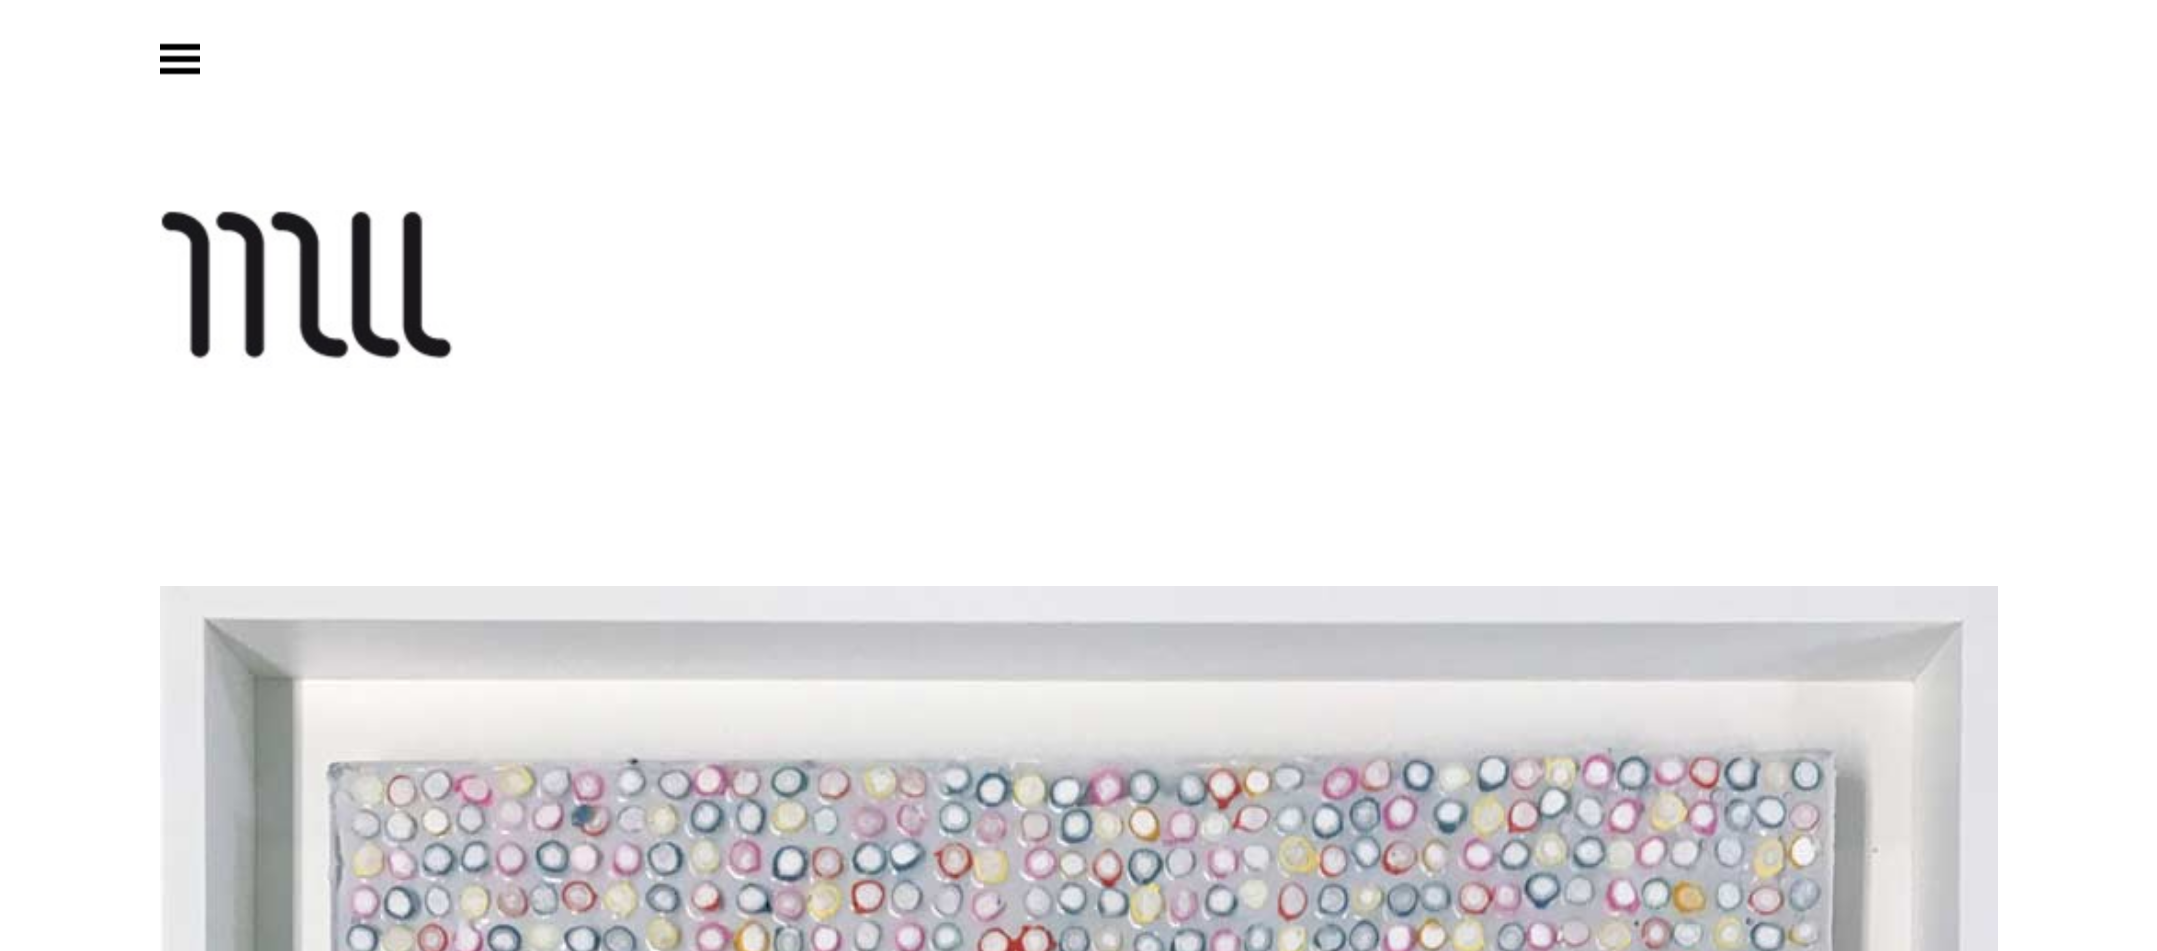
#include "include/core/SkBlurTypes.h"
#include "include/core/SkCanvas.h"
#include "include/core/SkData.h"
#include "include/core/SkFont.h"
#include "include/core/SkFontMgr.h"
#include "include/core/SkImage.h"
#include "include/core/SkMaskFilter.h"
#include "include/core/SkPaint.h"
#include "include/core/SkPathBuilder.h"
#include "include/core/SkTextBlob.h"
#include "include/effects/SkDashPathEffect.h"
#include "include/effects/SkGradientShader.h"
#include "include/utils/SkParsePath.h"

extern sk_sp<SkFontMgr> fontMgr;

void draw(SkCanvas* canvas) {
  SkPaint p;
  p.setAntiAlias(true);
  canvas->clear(SK_ColorWHITE);
  canvas->drawImageRect(SkImages::DeferredFromEncodedData(SkData::MakeFromFileName("images/1.png")), SkRect::MakeLTRB(160, 43, 200, 75), SkSamplingOptions());
  canvas->drawImageRect(SkImages::DeferredFromEncodedData(SkData::MakeFromFileName("images/2.png")), SkRect::MakeLTRB(160, 210, 453, 368), SkSamplingOptions());
  canvas->drawImageRect(SkImages::DeferredFromEncodedData(SkData::MakeFromFileName("images/3.png")), SkRect::MakeLTRB(160, 586, 1998, 951), SkSamplingOptions());
}
